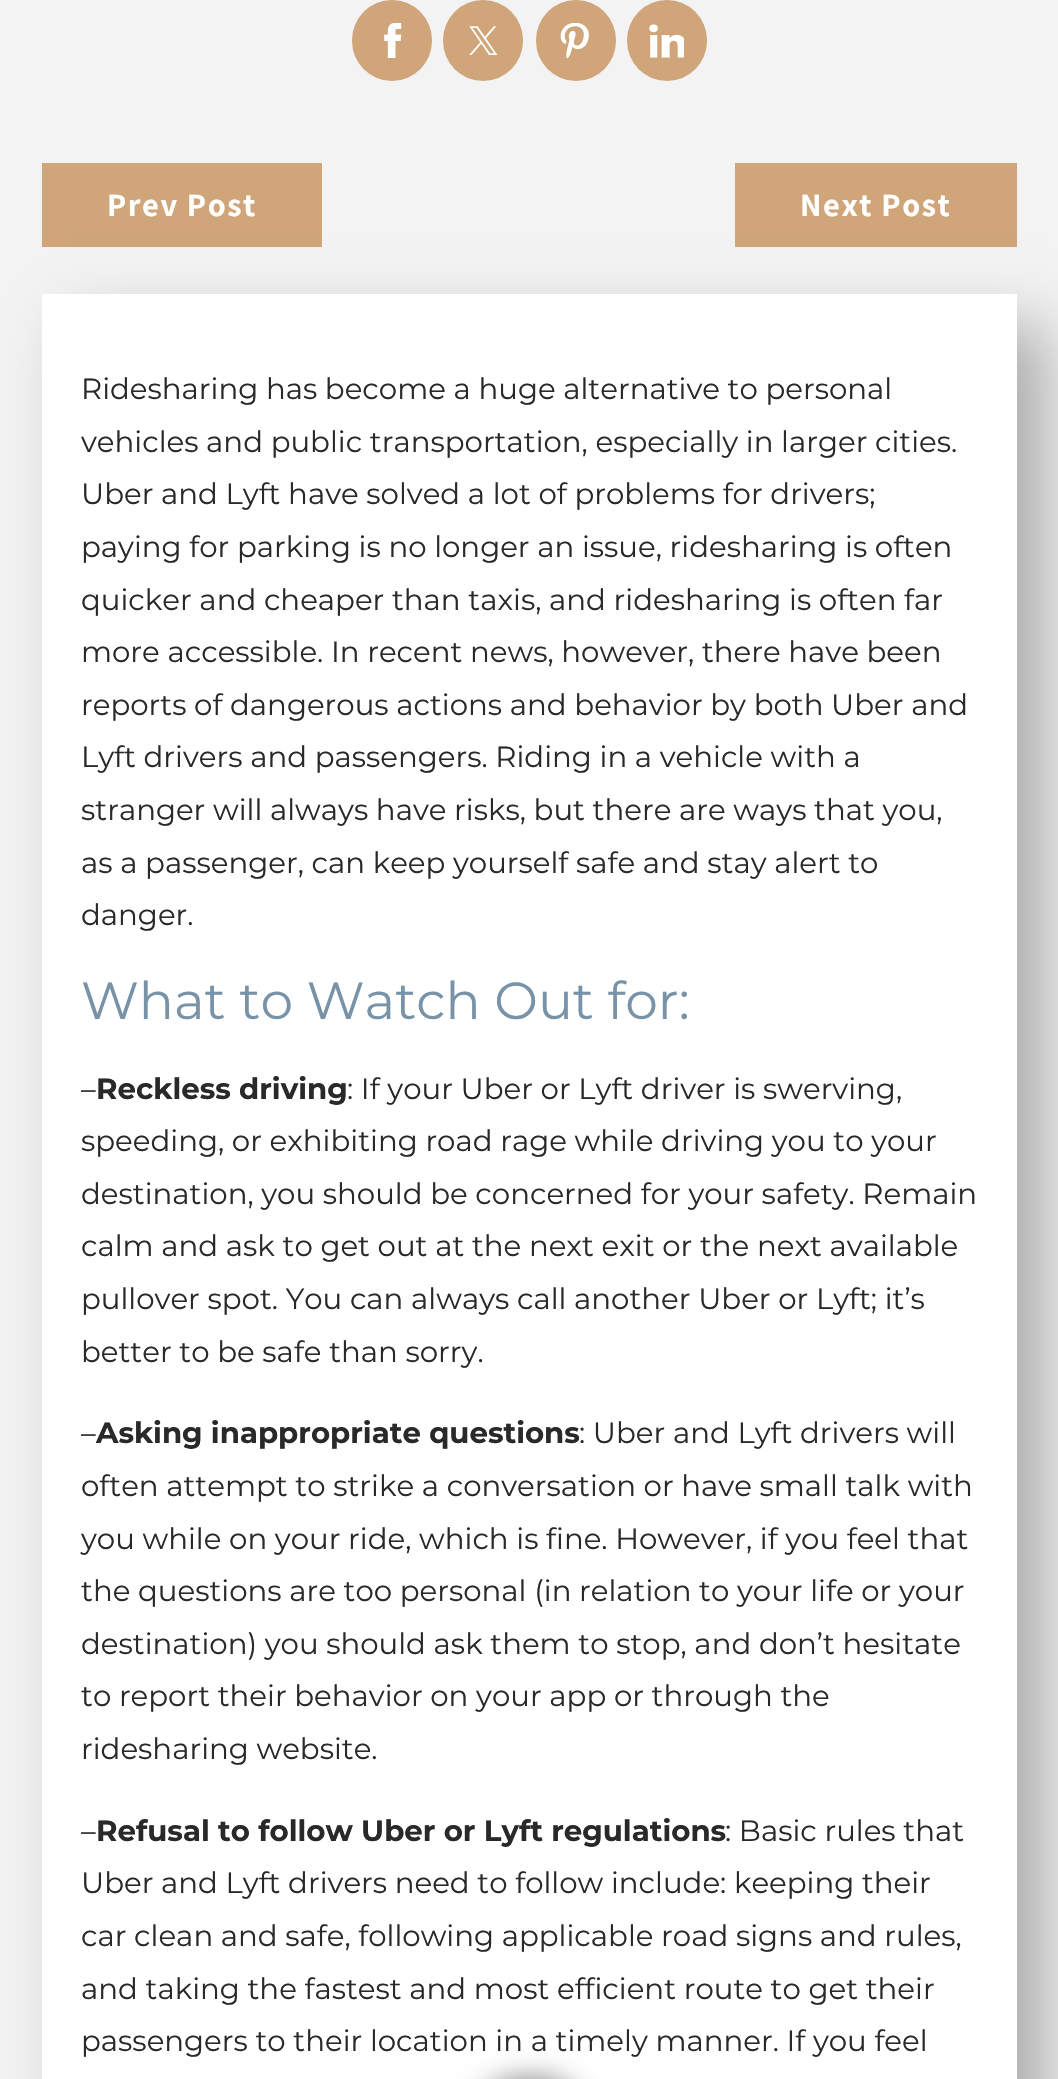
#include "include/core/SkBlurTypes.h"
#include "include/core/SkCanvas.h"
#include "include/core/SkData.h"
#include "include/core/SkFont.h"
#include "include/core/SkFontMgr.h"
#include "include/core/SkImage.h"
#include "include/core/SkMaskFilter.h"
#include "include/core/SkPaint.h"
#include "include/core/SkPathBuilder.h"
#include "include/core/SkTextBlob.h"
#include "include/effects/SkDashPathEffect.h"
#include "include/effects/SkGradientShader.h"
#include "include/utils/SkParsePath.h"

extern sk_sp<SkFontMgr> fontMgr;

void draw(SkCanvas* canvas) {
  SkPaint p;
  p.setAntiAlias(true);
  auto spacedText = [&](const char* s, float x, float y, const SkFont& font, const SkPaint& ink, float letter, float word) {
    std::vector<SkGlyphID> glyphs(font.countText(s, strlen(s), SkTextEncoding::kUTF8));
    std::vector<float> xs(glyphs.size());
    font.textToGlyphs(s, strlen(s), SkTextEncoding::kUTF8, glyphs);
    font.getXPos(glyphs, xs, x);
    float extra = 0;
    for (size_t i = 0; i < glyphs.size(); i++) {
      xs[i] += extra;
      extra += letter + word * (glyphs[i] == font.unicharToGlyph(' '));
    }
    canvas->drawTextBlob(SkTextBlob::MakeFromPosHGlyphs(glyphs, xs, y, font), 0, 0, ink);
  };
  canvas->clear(SkColorSetRGB(243, 243, 243));
  p.setColor(SkColorSetRGB(207, 165, 121));
  canvas->drawRoundRect(SkRect::MakeLTRB(352, 0, 432, 81), 40, 40, p);
  canvas->drawImageRect(SkImages::DeferredFromEncodedData(SkData::MakeFromFileName("images/1.png")), SkRect::MakeLTRB(384, 23, 402, 58), SkSamplingOptions());
  canvas->drawRoundRect(SkRect::MakeLTRB(443, 0, 523, 81), 40, 40, p);
  canvas->drawImageRect(SkImages::DeferredFromEncodedData(SkData::MakeFromFileName("images/2.png")), SkRect::MakeLTRB(469, 26, 498, 55), SkSamplingOptions());
  canvas->drawRoundRect(SkRect::MakeLTRB(536, 0, 616, 81), 40, 40, p);
  canvas->drawImageRect(SkImages::DeferredFromEncodedData(SkData::MakeFromFileName("images/3.png")), SkRect::MakeLTRB(560, 23, 589, 58), SkSamplingOptions());
  canvas->drawRoundRect(SkRect::MakeLTRB(627, 0, 707, 81), 40, 40, p);
  canvas->drawImageRect(SkImages::DeferredFromEncodedData(SkData::MakeFromFileName("images/4.png")), SkRect::MakeLTRB(649, 24, 684, 58), SkSamplingOptions());
  canvas->drawRect(SkRect::MakeLTRB(42, 163, 322, 247), p);
  canvas->drawRect(SkRect::MakeLTRB(735, 163, 1017, 247), p);
  p.setColor(SkColorSetARGB(74, 0, 0, 0));
  p.setMaskFilter(SkMaskFilter::MakeBlur(kNormal_SkBlurStyle, 29));
  canvas->drawRect(SkRect::MakeLTRB(72, 324, 1047, 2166), p);
  p.setMaskFilter(nullptr);
  p.setColor(SK_ColorWHITE);
  canvas->drawRect(SkRect::MakeLTRB(42, 294, 1017, 2079), p);
  p.setColor(SkColorSetARGB(128, 0, 0, 0));
  p.setMaskFilter(SkMaskFilter::MakeBlur(kNormal_SkBlurStyle, 14.5f));
  canvas->drawRoundRect(SkRect::MakeLTRB(473, 2079, 588, 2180), 57.5f, 57.5f, p);
  p.setMaskFilter(nullptr);
  SkFont font1(fontMgr->matchFamilyStyle("Assistant", SkFontStyle::Bold()), 32.5f);
  font1.setSubpixel(true);
  p.setColor(SK_ColorWHITE);
  spacedText("Prev Post", 107, 216, font1, p, 1.6f, 0);
  spacedText("Next Post", 800, 216, font1, p, 1.6f, 0);
  SkFont font2(fontMgr->matchFamilyStyle("Montserrat", SkFontStyle::Normal()), 29.25f);
  font2.setSubpixel(true);
  p.setColor(SkColorSetRGB(41, 41, 41));
  canvas->drawString("Ridesharing has become a huge alternative to personal", 81, 399, font2, p);
  canvas->drawString("vehicles and public transportation, especially in larger cities.", 81, 452, font2, p);
  canvas->drawString("Uber and Lyft have solved a lot of problems for drivers;", 81, 504, font2, p);
  canvas->drawString("paying for parking is no longer an issue, ridesharing is often", 81, 557, font2, p);
  canvas->drawString("quicker and cheaper than taxis, and ridesharing is often far", 81, 610, font2, p);
  canvas->drawString("more accessible. In recent news, however, there have been", 81, 662, font2, p);
  canvas->drawString("reports of dangerous actions and behavior by both Uber and", 81, 715, font2, p);
  canvas->drawString("Lyft drivers and passengers. Riding in a vehicle with a", 81, 767, font2, p);
  canvas->drawString("stranger will always have risks, but there are ways that you,", 81, 820, font2, p);
  canvas->drawString("as a passenger, can keep yourself safe and stay alert to", 81, 873, font2, p);
  canvas->drawString("danger.", 81, 925, font2, p);
  SkFont font3(fontMgr->matchFamilyStyle("Montserrat", SkFontStyle::Normal()), 52);
  font3.setSubpixel(true);
  p.setColor(SkColorSetRGB(120, 147, 168));
  canvas->drawString("What to Watch Out for:", 81, 1019, font3, p);
  p.setColor(SkColorSetRGB(41, 41, 41));
  canvas->drawString("–", 81, 1099, font2, p);
  SkFont font4(fontMgr->matchFamilyStyle("Montserrat", SkFontStyle::Bold()), 29.25f);
  font4.setSubpixel(true);
  canvas->drawString("Reckless driving", 96, 1099, font4, p);
  canvas->drawString(": If your Uber or Lyft driver is swerving,", 347, 1099, font2, p);
  canvas->drawString("speeding, or exhibiting road rage while driving you to your", 81, 1151, font2, p);
  canvas->drawString("destination, you should be concerned for your safety. Remain", 81, 1204, font2, p);
  canvas->drawString("calm and ask to get out at the next exit or the next available", 81, 1256, font2, p);
  canvas->drawString("pullover spot. You can always call another Uber or Lyft; it’s", 81, 1309, font2, p);
  canvas->drawString("better to be safe than sorry.", 81, 1362, font2, p);
  canvas->drawString("–", 81, 1443, font2, p);
  canvas->drawString("Asking inappropriate questions", 96, 1443, font4, p);
  canvas->drawString(": Uber and Lyft drivers will", 579, 1443, font2, p);
  canvas->drawString("often attempt to strike a conversation or have small talk with", 81, 1496, font2, p);
  canvas->drawString("you while on your ride, which is fine. However, if you feel that", 81, 1549, font2, p);
  canvas->drawString("the questions are too personal (in relation to your life or your", 81, 1601, font2, p);
  canvas->drawString("destination) you should ask them to stop, and don’t hesitate", 81, 1654, font2, p);
  canvas->drawString("to report their behavior on your app or through the", 81, 1706, font2, p);
  canvas->drawString("ridesharing website.", 81, 1759, font2, p);
  canvas->drawString("–", 81, 1841, font2, p);
  canvas->drawString("Refusal to follow Uber or Lyft regulations", 96, 1841, font4, p);
  canvas->drawString(": Basic rules that", 725, 1841, font2, p);
  canvas->drawString("Uber and Lyft drivers need to follow include: keeping their", 81, 1893, font2, p);
  canvas->drawString("car clean and safe, following applicable road signs and rules,", 81, 1946, font2, p);
  canvas->drawString("and taking the fastest and most efficient route to get their", 81, 1999, font2, p);
  canvas->drawString("passengers to their location in a timely manner. If you feel", 81, 2051, font2, p);
}
